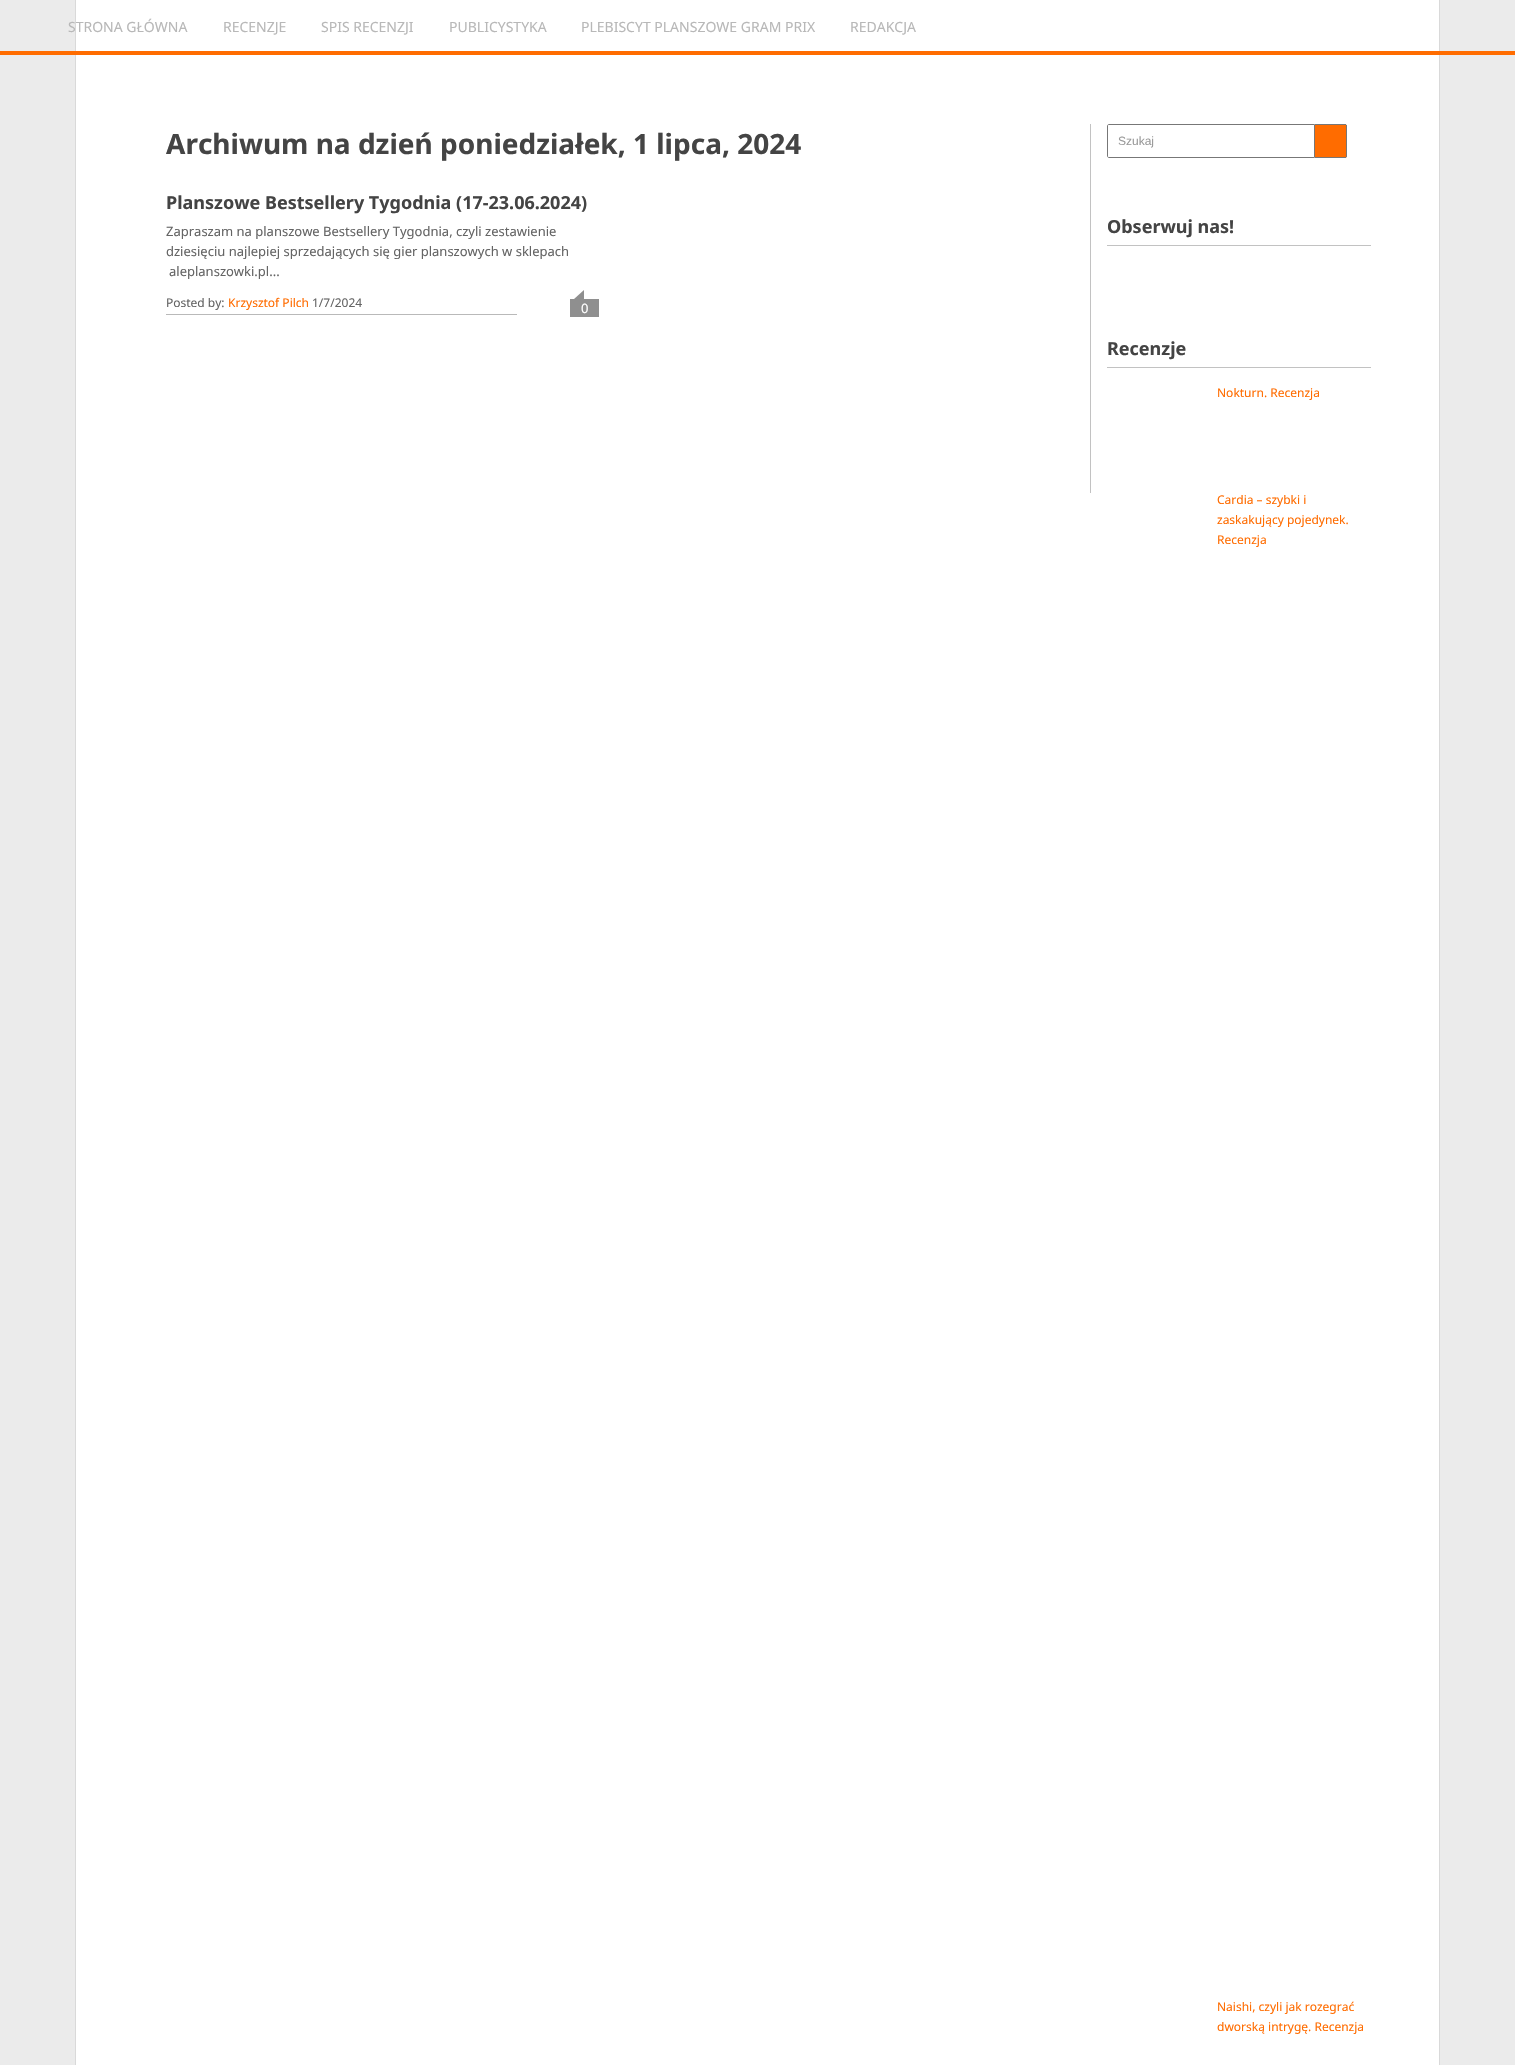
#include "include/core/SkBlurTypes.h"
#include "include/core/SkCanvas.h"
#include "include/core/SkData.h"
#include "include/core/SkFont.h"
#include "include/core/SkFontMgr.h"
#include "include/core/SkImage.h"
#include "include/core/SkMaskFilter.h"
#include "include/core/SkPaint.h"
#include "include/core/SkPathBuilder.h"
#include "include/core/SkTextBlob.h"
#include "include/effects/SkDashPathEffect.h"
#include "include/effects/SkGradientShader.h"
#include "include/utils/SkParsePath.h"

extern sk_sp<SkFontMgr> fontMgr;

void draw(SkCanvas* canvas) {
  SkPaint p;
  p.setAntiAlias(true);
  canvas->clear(SkColorSetRGB(235, 235, 235));
  p.setColor(SK_ColorWHITE);
  canvas->drawRect(SkRect::MakeLTRB(76, 0, 1439, 2065), p);
  p.setColor(SkColorSetRGB(217, 217, 217));
  canvas->drawRect(SkRect::MakeLTRB(1439, 0, 1440, 2065), p);
  canvas->drawRect(SkRect::MakeLTRB(75, 0, 76, 2065), p);
  p.setColor(SkColorSetRGB(255, 108, 0));
  canvas->drawRect(SkRect::MakeLTRB(0, 51, 1515, 55), p);
  p.setColor(SkColorSetRGB(194, 194, 194));
  canvas->drawRect(SkRect::MakeLTRB(1090, 124, 1091, 493), p);
  p.setColor(SkColorSetRGB(185, 185, 185));
  canvas->drawRect(SkRect::MakeLTRB(166, 314, 517, 315), p);
  p.setColor(SkColorSetRGB(143, 143, 143));
  canvas->drawRect(SkRect::MakeLTRB(570, 299, 599, 317), p);
  canvas->drawPath(SkPathBuilder().moveTo(584, 299).lineTo(574, 299).lineTo(584, 290).close().detach(), p);
  p.setStyle(SkPaint::kStroke_Style);
  p.setStrokeWidth(1);
  p.setColor(SkColorSetRGB(119, 119, 119));
  canvas->drawPath(SkPathBuilder().moveTo(1109, 124.5f).lineTo(1314.5f, 124.5f).lineTo(1314.5f, 157.5f).lineTo(1109, 157.5f).cubicTo(1108, 157.5f, 1107.5f, 157, 1107.5f, 156).lineTo(1107.5f, 126).cubicTo(1107.5f, 125, 1108, 124.5f, 1109, 124.5f).close().detach(), p);
  p.setStyle(SkPaint::kFill_Style);
  p.setColor(SkColorSetRGB(255, 108, 0));
  canvas->drawPath(SkPathBuilder().moveTo(1315, 124).lineTo(1345, 124).cubicTo(1346, 124, 1347, 125, 1347, 126).lineTo(1347, 156).cubicTo(1347, 157, 1346, 158, 1345, 158).lineTo(1315, 158).close().detach(), p);
  p.setColor(SkColorSetRGB(119, 119, 119));
  canvas->drawRect(SkRect::MakeLTRB(1315, 124, 1346, 125), p);
  canvas->drawRect(SkRect::MakeLTRB(1346, 125, 1347, 157), p);
  canvas->drawRect(SkRect::MakeLTRB(1315, 157, 1346, 158), p);
  p.setColor(SkColorSetRGB(194, 194, 194));
  canvas->drawRect(SkRect::MakeLTRB(1107, 245, 1371, 246), p);
  canvas->drawRect(SkRect::MakeLTRB(1107, 367, 1371, 368), p);
  SkFont font1(fontMgr->matchFamilyStyle("Noto Sans", SkFontStyle::Normal()), 14);
  font1.setSubpixel(true);
  p.setColor(SkColorSetRGB(184, 184, 184));
  canvas->drawString("STRONA GŁÓWNA", 68, 32, font1, p);
  canvas->drawString("RECENZJE", 223, 32, font1, p);
  canvas->drawString("SPIS RECENZJI", 321, 32, font1, p);
  canvas->drawString("PUBLICYSTYKA", 449, 32, font1, p);
  canvas->drawString("PLEBISCYT PLANSZOWE GRAM PRIX", 581, 32, font1, p);
  canvas->drawString("REDAKCJA", 850, 32, font1, p);
  SkFont font2(fontMgr->matchFamilyStyle("Noto Sans", SkFontStyle::Bold()), 28);
  font2.setSubpixel(true);
  p.setColor(SkColorSetRGB(68, 68, 68));
  canvas->drawString("Archiwum na dzień poniedziałek, 1 lipca, 2024", 166, 154, font2, p);
  SkFont font3(fontMgr->matchFamilyStyle("Noto Sans", SkFontStyle::Bold()), 18);
  font3.setSubpixel(true);
  canvas->drawString("Planszowe Bestsellery Tygodnia (17-23.06.2024)", 166, 209, font3, p);
  SkFont font4(fontMgr->matchFamilyStyle("Noto Sans", SkFontStyle::Normal()), 13);
  font4.setSubpixel(true);
  p.setColor(SkColorSetRGB(100, 100, 100));
  canvas->drawString("Zapraszam na planszowe Bestsellery Tygodnia, czyli zestawienie", 166, 236, font4, p);
  canvas->drawString("dziesięciu najlepiej sprzedających się gier planszowych w sklepach", 166, 256, font4, p);
  canvas->drawString("aleplanszowki.pl...", 169, 276, font4, p);
  SkFont font5(fontMgr->matchFamilyStyle("Noto Sans", SkFontStyle::Normal()), 12);
  font5.setSubpixel(true);
  canvas->drawString("Posted by:", 166, 307, font5, p);
  p.setColor(SkColorSetRGB(255, 108, 0));
  canvas->drawString("Krzysztof Pilch", 228, 307, font5, p);
  p.setColor(SkColorSetRGB(100, 100, 100));
  canvas->drawString("1/7/2024", 312, 307, font5, p);
  p.setColor(SK_ColorWHITE);
  canvas->drawString("0", 581, 313, font4, p);
  SkFont font6(fontMgr->matchFamilyStyle("Liberation Sans", SkFontStyle::Normal()), 12);
  font6.setSubpixel(true);
  p.setColor(SkColorSetRGB(153, 153, 153));
  canvas->drawString("Szukaj", 1118, 145, font6, p);
  p.setColor(SkColorSetRGB(68, 68, 68));
  canvas->drawString("Obserwuj nas!", 1107, 233, font3, p);
  canvas->drawString("Recenzje", 1107, 355, font3, p);
  p.setColor(SkColorSetRGB(255, 108, 0));
  canvas->drawString("Nokturn. Recenzja", 1217, 397, font5, p);
  canvas->drawString("Cardia – szybki i", 1217, 504, font5, p);
  canvas->drawString("zaskakujący pojedynek.", 1217, 524, font5, p);
  canvas->drawString("Recenzja", 1217, 544, font5, p);
  canvas->drawString("Naishi, czyli jak rozegrać", 1217, 2011, font5, p);
  canvas->drawString("dworską intrygę. Recenzja", 1217, 2031, font5, p);
}
